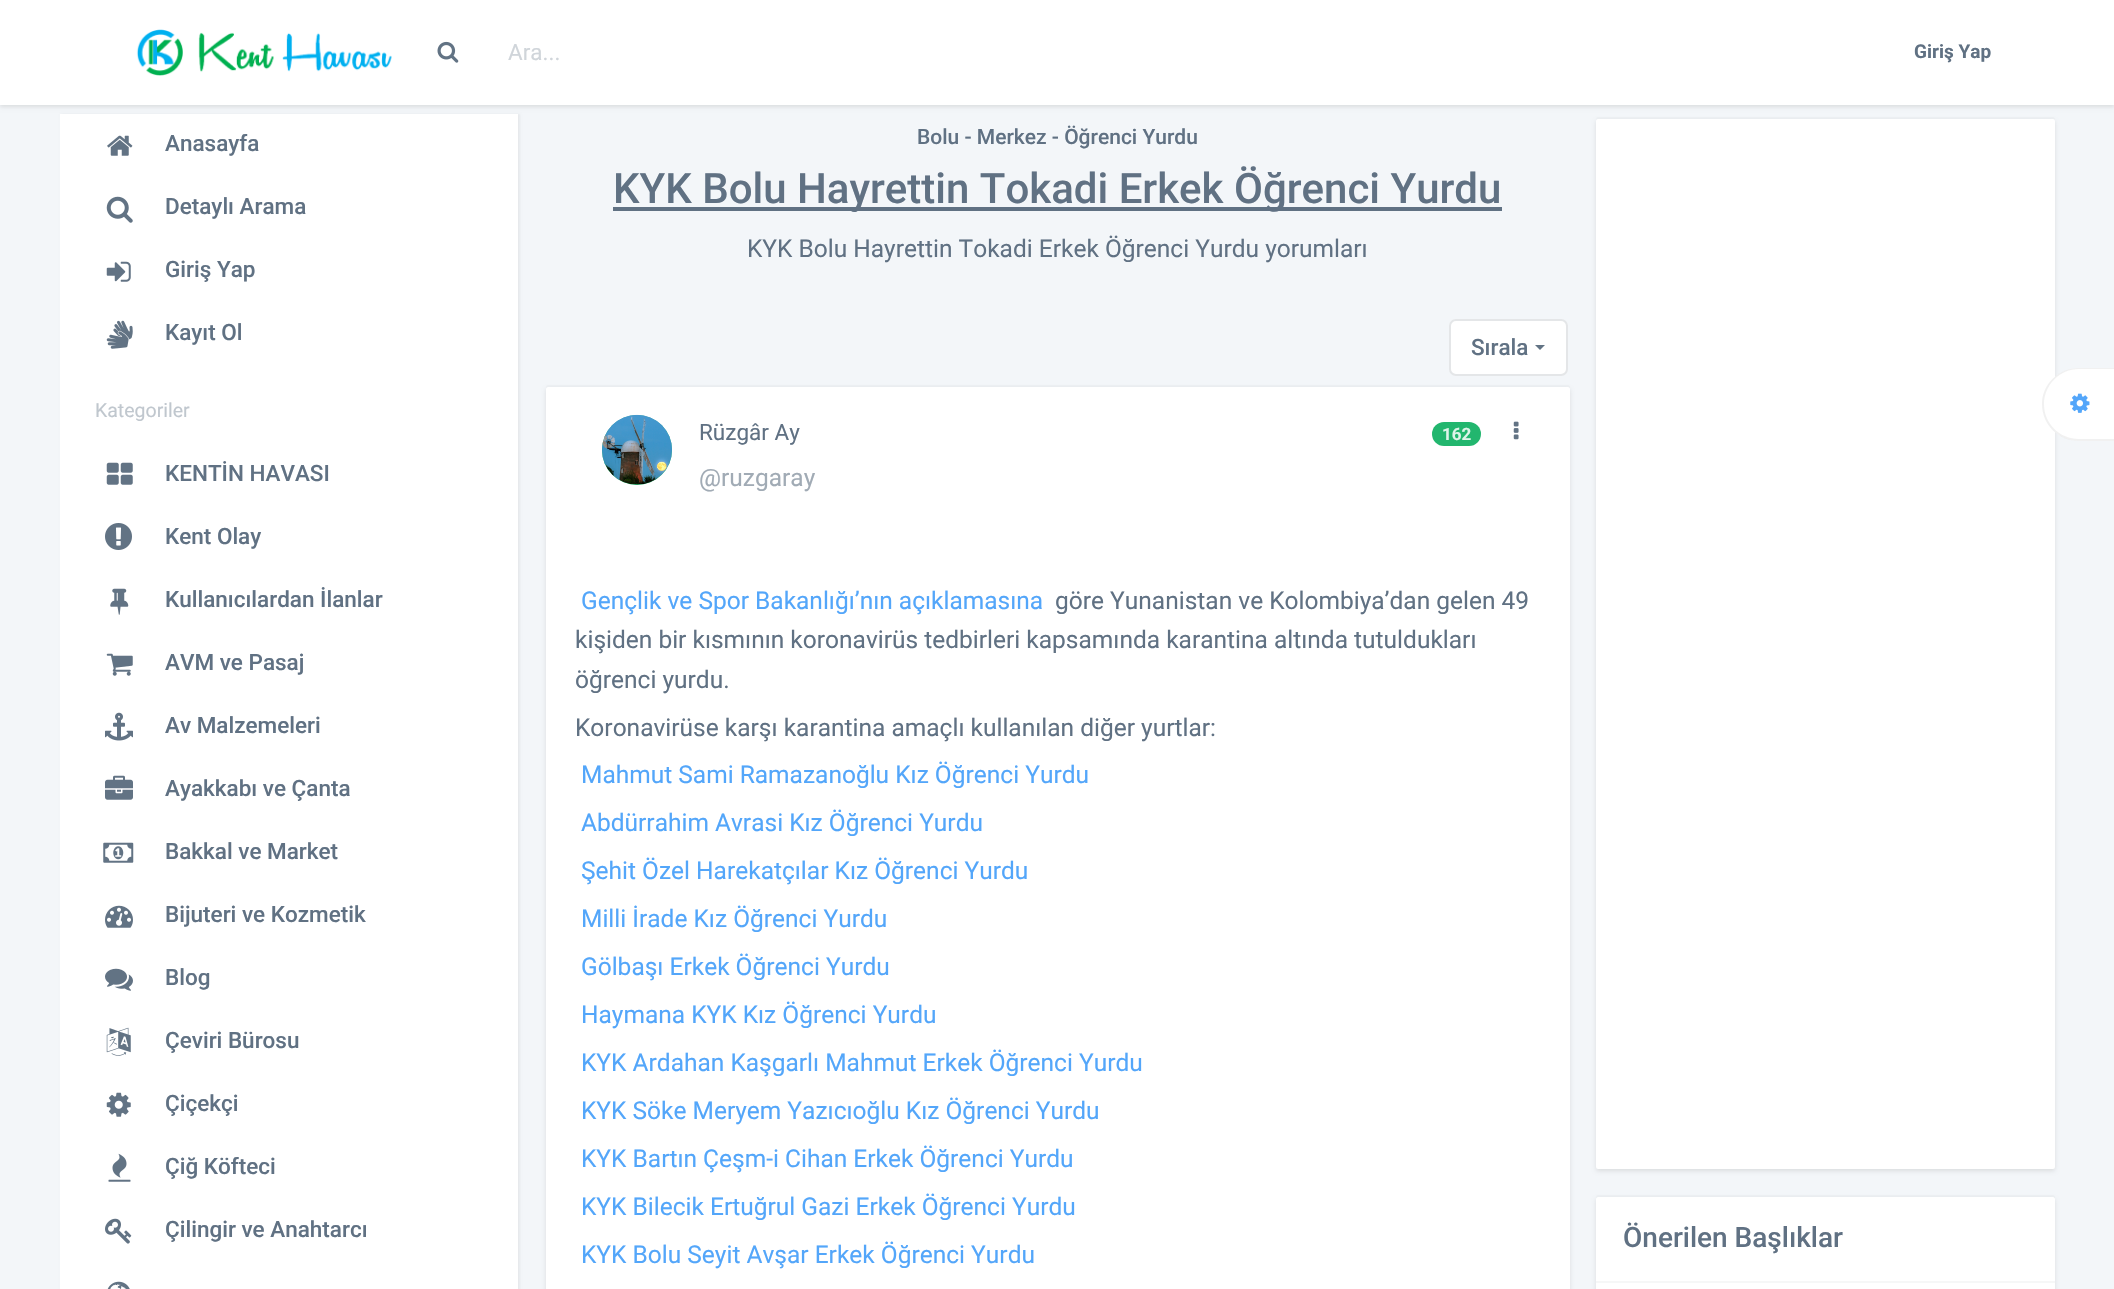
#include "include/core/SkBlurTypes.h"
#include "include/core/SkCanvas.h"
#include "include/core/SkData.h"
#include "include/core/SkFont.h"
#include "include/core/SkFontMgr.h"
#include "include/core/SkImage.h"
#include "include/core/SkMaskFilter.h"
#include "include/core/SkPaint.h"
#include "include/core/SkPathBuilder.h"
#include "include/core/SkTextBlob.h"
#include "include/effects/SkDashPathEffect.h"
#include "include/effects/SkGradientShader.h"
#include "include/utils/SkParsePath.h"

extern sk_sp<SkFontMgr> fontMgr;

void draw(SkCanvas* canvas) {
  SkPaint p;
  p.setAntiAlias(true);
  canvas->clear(SkColorSetRGB(243, 246, 249));
  p.setColor(SkColorSetARGB(26, 0, 0, 0));
  p.setMaskFilter(SkMaskFilter::MakeBlur(kNormal_SkBlurStyle, 2));
  canvas->drawRect(SkRect::MakeLTRB(0, 2, 2114, 107), p);
  p.setMaskFilter(nullptr);
  p.setColor(SK_ColorWHITE);
  canvas->drawRect(SkRect::MakeLTRB(0, 0, 2114, 105), p);
  canvas->drawImageRect(SkImages::DeferredFromEncodedData(SkData::MakeFromFileName("images/1.png")), SkRect::MakeLTRB(136, 29, 392, 76), SkSamplingOptions());
  canvas->drawImageRect(SkImages::DeferredFromEncodedData(SkData::MakeFromFileName("images/2.png")), SkRect::MakeLTRB(437, 41, 459, 63), SkSamplingOptions());
  p.setColor(SkColorSetARGB(13, 0, 0, 0));
  p.setMaskFilter(SkMaskFilter::MakeBlur(kNormal_SkBlurStyle, 1));
  canvas->drawRect(SkRect::MakeLTRB(61, 114, 520, 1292), p);
  p.setMaskFilter(nullptr);
  p.setColor(SK_ColorWHITE);
  canvas->drawRect(SkRect::MakeLTRB(60, 114, 518, 1289), p);
  canvas->drawImageRect(SkImages::DeferredFromEncodedData(SkData::MakeFromFileName("images/3.png")), SkRect::MakeLTRB(107, 135, 133, 156), SkSamplingOptions());
  canvas->drawImageRect(SkImages::DeferredFromEncodedData(SkData::MakeFromFileName("images/4.png")), SkRect::MakeLTRB(106, 196, 133, 223), SkSamplingOptions());
  canvas->drawImageRect(SkImages::DeferredFromEncodedData(SkData::MakeFromFileName("images/5.png")), SkRect::MakeLTRB(106, 261, 131, 282), SkSamplingOptions());
  canvas->drawImageRect(SkImages::DeferredFromEncodedData(SkData::MakeFromFileName("images/6.png")), SkRect::MakeLTRB(106, 320, 133, 349), SkSamplingOptions());
  canvas->drawImageRect(SkImages::DeferredFromEncodedData(SkData::MakeFromFileName("images/7.png")), SkRect::MakeLTRB(106, 462, 133, 485), SkSamplingOptions());
  canvas->drawImageRect(SkImages::DeferredFromEncodedData(SkData::MakeFromFileName("images/8.png")), SkRect::MakeLTRB(105, 523, 132, 550), SkSamplingOptions());
  canvas->drawImageRect(SkImages::DeferredFromEncodedData(SkData::MakeFromFileName("images/9.png")), SkRect::MakeLTRB(110, 588, 129, 615), SkSamplingOptions());
  canvas->drawImageRect(SkImages::DeferredFromEncodedData(SkData::MakeFromFileName("images/10.png")), SkRect::MakeLTRB(106, 653, 133, 676), SkSamplingOptions());
  canvas->drawImageRect(SkImages::DeferredFromEncodedData(SkData::MakeFromFileName("images/11.png")), SkRect::MakeLTRB(105, 712, 133, 741), SkSamplingOptions());
  canvas->drawImageRect(SkImages::DeferredFromEncodedData(SkData::MakeFromFileName("images/12.png")), SkRect::MakeLTRB(105, 775, 133, 800), SkSamplingOptions());
  canvas->drawImageRect(SkImages::DeferredFromEncodedData(SkData::MakeFromFileName("images/13.png")), SkRect::MakeLTRB(103, 842, 134, 863), SkSamplingOptions());
  canvas->drawImageRect(SkImages::DeferredFromEncodedData(SkData::MakeFromFileName("images/14.png")), SkRect::MakeLTRB(105, 905, 133, 928), SkSamplingOptions());
  canvas->drawImageRect(SkImages::DeferredFromEncodedData(SkData::MakeFromFileName("images/15.png")), SkRect::MakeLTRB(105, 968, 133, 991), SkSamplingOptions());
  canvas->drawImageRect(SkImages::DeferredFromEncodedData(SkData::MakeFromFileName("images/16.png")), SkRect::MakeLTRB(106, 1027, 131, 1056), SkSamplingOptions());
  canvas->drawImageRect(SkImages::DeferredFromEncodedData(SkData::MakeFromFileName("images/17.png")), SkRect::MakeLTRB(106, 1092, 131, 1117), SkSamplingOptions());
  canvas->drawImageRect(SkImages::DeferredFromEncodedData(SkData::MakeFromFileName("images/18.png")), SkRect::MakeLTRB(108, 1153, 131, 1182), SkSamplingOptions());
  canvas->drawImageRect(SkImages::DeferredFromEncodedData(SkData::MakeFromFileName("images/19.png")), SkRect::MakeLTRB(105, 1218, 132, 1244), SkSamplingOptions());
  canvas->drawImageRect(SkImages::DeferredFromEncodedData(SkData::MakeFromFileName("images/20.png")), SkRect::MakeLTRB(107, 1281, 130, 1289), SkSamplingOptions());
  p.setColor(SkColorSetRGB(96, 113, 131));
  canvas->drawRect(SkRect::MakeLTRB(613, 207, 1502, 211), p);
  p.setColor(SK_ColorWHITE);
  canvas->drawRoundRect(SkRect::MakeLTRB(1449, 319, 1568, 376), 7, 7, p);
  p.setStyle(SkPaint::kStroke_Style);
  p.setStrokeWidth(2);
  p.setColor(SkColorSetARGB(51, 120, 130, 140));
  canvas->drawRoundRect(SkRect::MakeLTRB(1450, 320, 1567, 375), 6, 6, p);
  p.setStyle(SkPaint::kFill_Style);
  p.setColor(SkColorSetRGB(98, 115, 132));
  canvas->drawPath(SkPathBuilder().moveTo(1535, 345).lineTo(1545, 345).lineTo(1540, 350).close().detach(), p);
  p.setColor(SkColorSetRGB(238, 241, 244));
  canvas->drawPath(SkPathBuilder().moveTo(548, 385).cubicTo(546, 385, 546, 387, 546, 388).cubicTo(546, 388, 547, 387, 548, 387).lineTo(1568, 387).cubicTo(1569, 387, 1570, 388, 1570, 388).lineTo(1570, 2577).lineTo(1570, 387).cubicTo(1570, 386, 1569, 385, 1568, 385).close().detach(), p);
  p.setColor(SkColorSetARGB(26, 0, 0, 0));
  p.setMaskFilter(SkMaskFilter::MakeBlur(kNormal_SkBlurStyle, 2));
  canvas->drawRoundRect(SkRect::MakeLTRB(546, 389, 1570, 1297), 2, 2, p);
  p.setMaskFilter(nullptr);
  p.setColor(SK_ColorWHITE);
  canvas->drawPath(SkPathBuilder().moveTo(548, 387).lineTo(1568, 387).cubicTo(1569, 387, 1570, 388, 1570, 389).lineTo(1570, 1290).lineTo(546, 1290).lineTo(546, 389).cubicTo(546, 388, 547, 387, 548, 387).close().detach(), p);
  p.setColor(SkColorSetRGB(34, 182, 110));
  canvas->drawCircle(637, 450, 35, p);
  canvas->drawImageRect(SkImages::DeferredFromEncodedData(SkData::MakeFromFileName("images/21.png")), SkRect::MakeLTRB(602, 414, 672, 485), SkSamplingOptions());
  canvas->drawRoundRect(SkRect::MakeLTRB(1432, 422, 1481, 446), 12, 12, p);
  canvas->drawImageRect(SkImages::DeferredFromEncodedData(SkData::MakeFromFileName("images/22.png")), SkRect::MakeLTRB(1513, 421, 1519, 440), SkSamplingOptions());
  p.setColor(SkColorSetRGB(238, 241, 244));
  canvas->drawPath(SkPathBuilder().moveTo(1598, 117).cubicTo(1596, 117, 1596, 119, 1596, 121).cubicTo(1596, 120, 1597, 119, 1598, 119).lineTo(2053, 119).cubicTo(2054, 119, 2054, 120, 2054, 121).lineTo(2054, 1166).lineTo(2055, 1165).lineTo(2055, 119).cubicTo(2055, 118, 2054, 117, 2053, 117).close().detach(), p);
  p.setColor(SkColorSetARGB(26, 0, 0, 0));
  p.setMaskFilter(SkMaskFilter::MakeBlur(kNormal_SkBlurStyle, 2));
  canvas->drawRoundRect(SkRect::MakeLTRB(1596, 121, 2055, 1171), 2, 2, p);
  p.setMaskFilter(nullptr);
  p.setColor(SK_ColorWHITE);
  canvas->drawRoundRect(SkRect::MakeLTRB(1596, 119, 2055, 1169), 2, 2, p);
  p.setColor(SkColorSetRGB(238, 241, 244));
  canvas->drawPath(SkPathBuilder().moveTo(1598, 1195).cubicTo(1596, 1195, 1596, 1197, 1596, 1199).cubicTo(1596, 1198, 1597, 1197, 1598, 1197).lineTo(2053, 1197).cubicTo(2054, 1197, 2054, 1198, 2054, 1199).lineTo(2054, 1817).lineTo(2055, 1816).lineTo(2055, 1197).cubicTo(2055, 1196, 2054, 1195, 2053, 1195).close().detach(), p);
  p.setColor(SkColorSetARGB(26, 0, 0, 0));
  p.setMaskFilter(SkMaskFilter::MakeBlur(kNormal_SkBlurStyle, 2));
  canvas->drawRoundRect(SkRect::MakeLTRB(1596, 1199, 2055, 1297), 2, 2, p);
  p.setMaskFilter(nullptr);
  p.setColor(SK_ColorWHITE);
  canvas->drawPath(SkPathBuilder().moveTo(1598, 1197).lineTo(2053, 1197).cubicTo(2054, 1197, 2055, 1198, 2055, 1199).lineTo(2055, 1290).lineTo(1596, 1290).lineTo(1596, 1199).cubicTo(1596, 1198, 1597, 1197, 1598, 1197).close().detach(), p);
  p.setColor(SkColorSetRGB(246, 247, 247));
  canvas->drawRect(SkRect::MakeLTRB(1596, 1281, 2055, 1283), p);
  p.setColor(SK_ColorWHITE);
  canvas->drawPath(SkPathBuilder().moveTo(2078.5f, 368).lineTo(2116, 368).lineTo(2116, 441).lineTo(2078.5f, 441).cubicTo(2058.5f, 441, 2042, 424.5f, 2042, 404.5f).cubicTo(2042, 384.5f, 2058.5f, 368, 2078.5f, 368).close().detach(), p);
  p.setColor(SkColorSetARGB(26, 120, 120, 120));
  canvas->drawPath(SkPathBuilder(SkPathFillType::kEvenOdd).moveTo(2079, 368).lineTo(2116, 368).lineTo(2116, 441).lineTo(2079, 441).cubicTo(2059, 441, 2042, 425, 2042, 404).cubicTo(2042, 384, 2059, 368, 2079, 368).close().moveTo(2079, 369).lineTo(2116, 369).lineTo(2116, 439).lineTo(2079, 439).cubicTo(2060, 439, 2044, 424, 2044, 404).cubicTo(2044, 385, 2060, 369, 2079, 369).close().detach(), p);
  canvas->drawImageRect(SkImages::DeferredFromEncodedData(SkData::MakeFromFileName("images/23.png")), SkRect::MakeLTRB(2070, 393, 2090, 413), SkSamplingOptions());
  SkFont font1(fontMgr->matchFamilyStyle("Roboto", SkFontStyle::Normal()), 22.5f);
  font1.setSubpixel(true);
  p.setColor(SkColorSetRGB(208, 213, 218));
  canvas->drawString("Ara...", 508, 60, font1, p);
  SkFont font2(fontMgr->matchFamilyStyle("Roboto", SkFontStyle::Bold()), 19);
  font2.setSubpixel(true);
  p.setColor(SkColorSetRGB(96, 113, 131));
  canvas->drawString("Giriş Yap", 1914, 58, font2, p);
  SkFont font3(fontMgr->matchFamilyStyle("Roboto", SkFontStyle(500, SkFontStyle::kNormal_Width, SkFontStyle::kUpright_Slant)), 22.5f);
  font3.setSubpixel(true);
  canvas->drawString("Anasayfa", 165, 151, font3, p);
  canvas->drawString("Detaylı Arama", 165, 214, font3, p);
  canvas->drawString("Giriş Yap", 165, 277, font3, p);
  canvas->drawString("Kayıt Ol", 165, 340, font3, p);
  SkFont font4(fontMgr->matchFamilyStyle("Roboto", SkFontStyle::Normal()), 19.5f);
  font4.setSubpixel(true);
  p.setColor(SkColorSetRGB(192, 199, 206));
  canvas->drawString("Kategoriler", 95, 417, font4, p);
  p.setColor(SkColorSetRGB(96, 113, 131));
  canvas->drawString("KENTİN HAVASI", 165, 481, font3, p);
  canvas->drawString("Kent Olay", 165, 544, font3, p);
  canvas->drawString("Kullanıcılardan İlanlar", 165, 607, font3, p);
  canvas->drawString("AVM ve Pasaj", 165, 670, font3, p);
  canvas->drawString("Av Malzemeleri", 165, 733, font3, p);
  canvas->drawString("Ayakkabı ve Çanta", 165, 796, font3, p);
  canvas->drawString("Bakkal ve Market", 165, 859, font3, p);
  canvas->drawString("Bijuteri ve Kozmetik", 165, 922, font3, p);
  canvas->drawString("Blog", 165, 985, font3, p);
  canvas->drawString("Çeviri Bürosu", 165, 1048, font3, p);
  canvas->drawString("Çiçekçi", 165, 1111, font3, p);
  canvas->drawString("Çiğ Köfteci", 165, 1174, font3, p);
  canvas->drawString("Çilingir ve Anahtarcı", 165, 1237, font3, p);
  SkFont font5(fontMgr->matchFamilyStyle("Roboto", SkFontStyle(500, SkFontStyle::kNormal_Width, SkFontStyle::kUpright_Slant)), 21);
  font5.setSubpixel(true);
  canvas->drawString("Bolu - Merkez - Öğrenci Yurdu", 917, 144, font5, p);
  SkFont font6(fontMgr->matchFamilyStyle("Roboto", SkFontStyle(500, SkFontStyle::kNormal_Width, SkFontStyle::kUpright_Slant)), 42);
  font6.setSubpixel(true);
  canvas->drawString("KYK Bolu Hayrettin Tokadi Erkek Öğrenci Yurdu", 613, 203, font6, p);
  SkFont font7(fontMgr->matchFamilyStyle("Roboto", SkFontStyle::Normal()), 24.5f);
  font7.setSubpixel(true);
  canvas->drawString("KYK Bolu Hayrettin Tokadi Erkek Öğrenci Yurdu yorumları", 747, 257, font7, p);
  canvas->drawString("Sırala", 1471, 355, font3, p);
  canvas->drawString("Rüzgâr Ay", 699, 440, font1, p);
  p.setColor(SkColorSetRGB(161, 171, 181));
  canvas->drawString("@ruzgaray", 699, 486, font7, p);
  SkFont font8(fontMgr->matchFamilyStyle("Roboto", SkFontStyle::Bold()), 17);
  font8.setSubpixel(true);
  p.setColor(SkColorSetRGB(222, 244, 233));
  canvas->drawString("162", 1442, 440, font8, p);
  p.setColor(SkColorSetRGB(83, 166, 250));
  canvas->drawString("Gençlik ve Spor Bakanlığı’nın açıklamasına", 581, 609, font7, p);
  p.setColor(SkColorSetRGB(96, 113, 131));
  canvas->drawString("göre Yunanistan ve Kolombiya’dan gelen 49", 1055, 609, font7, p);
  canvas->drawString("kişiden bir kısmının koronavirüs tedbirleri kapsamında karantina altında tutuldukları", 575, 648, font7, p);
  canvas->drawString("öğrenci yurdu.", 575, 688, font7, p);
  canvas->drawString("Koronavirüse karşı karantina amaçlı kullanılan diğer yurtlar:", 575, 736, font7, p);
  p.setColor(SkColorSetRGB(83, 166, 250));
  canvas->drawString("Mahmut Sami Ramazanoğlu Kız Öğrenci Yurdu", 581, 783, font7, p);
  canvas->drawString("Abdürrahim Avrasi Kız Öğrenci Yurdu", 581, 831, font7, p);
  canvas->drawString("Şehit Özel Harekatçılar Kız Öğrenci Yurdu", 581, 879, font7, p);
  canvas->drawString("Milli İrade Kız Öğrenci Yurdu", 581, 927, font7, p);
  canvas->drawString("Gölbaşı Erkek Öğrenci Yurdu", 581, 975, font7, p);
  canvas->drawString("Haymana KYK Kız Öğrenci Yurdu", 581, 1023, font7, p);
  canvas->drawString("KYK Ardahan Kaşgarlı Mahmut Erkek Öğrenci Yurdu", 581, 1071, font7, p);
  canvas->drawString("KYK Söke Meryem Yazıcıoğlu Kız Öğrenci Yurdu", 581, 1119, font7, p);
  canvas->drawString("KYK Bartın Çeşm-i Cihan Erkek Öğrenci Yurdu", 581, 1167, font7, p);
  canvas->drawString("KYK Bilecik Ertuğrul Gazi Erkek Öğrenci Yurdu", 581, 1215, font7, p);
  canvas->drawString("KYK Bolu Seyit Avşar Erkek Öğrenci Yurdu", 581, 1263, font7, p);
  SkFont font9(fontMgr->matchFamilyStyle("Roboto", SkFontStyle(500, SkFontStyle::kNormal_Width, SkFontStyle::kUpright_Slant)), 28);
  font9.setSubpixel(true);
  p.setColor(SkColorSetRGB(96, 113, 131));
  canvas->drawString("Önerilen Başlıklar", 1623, 1247, font9, p);
}
